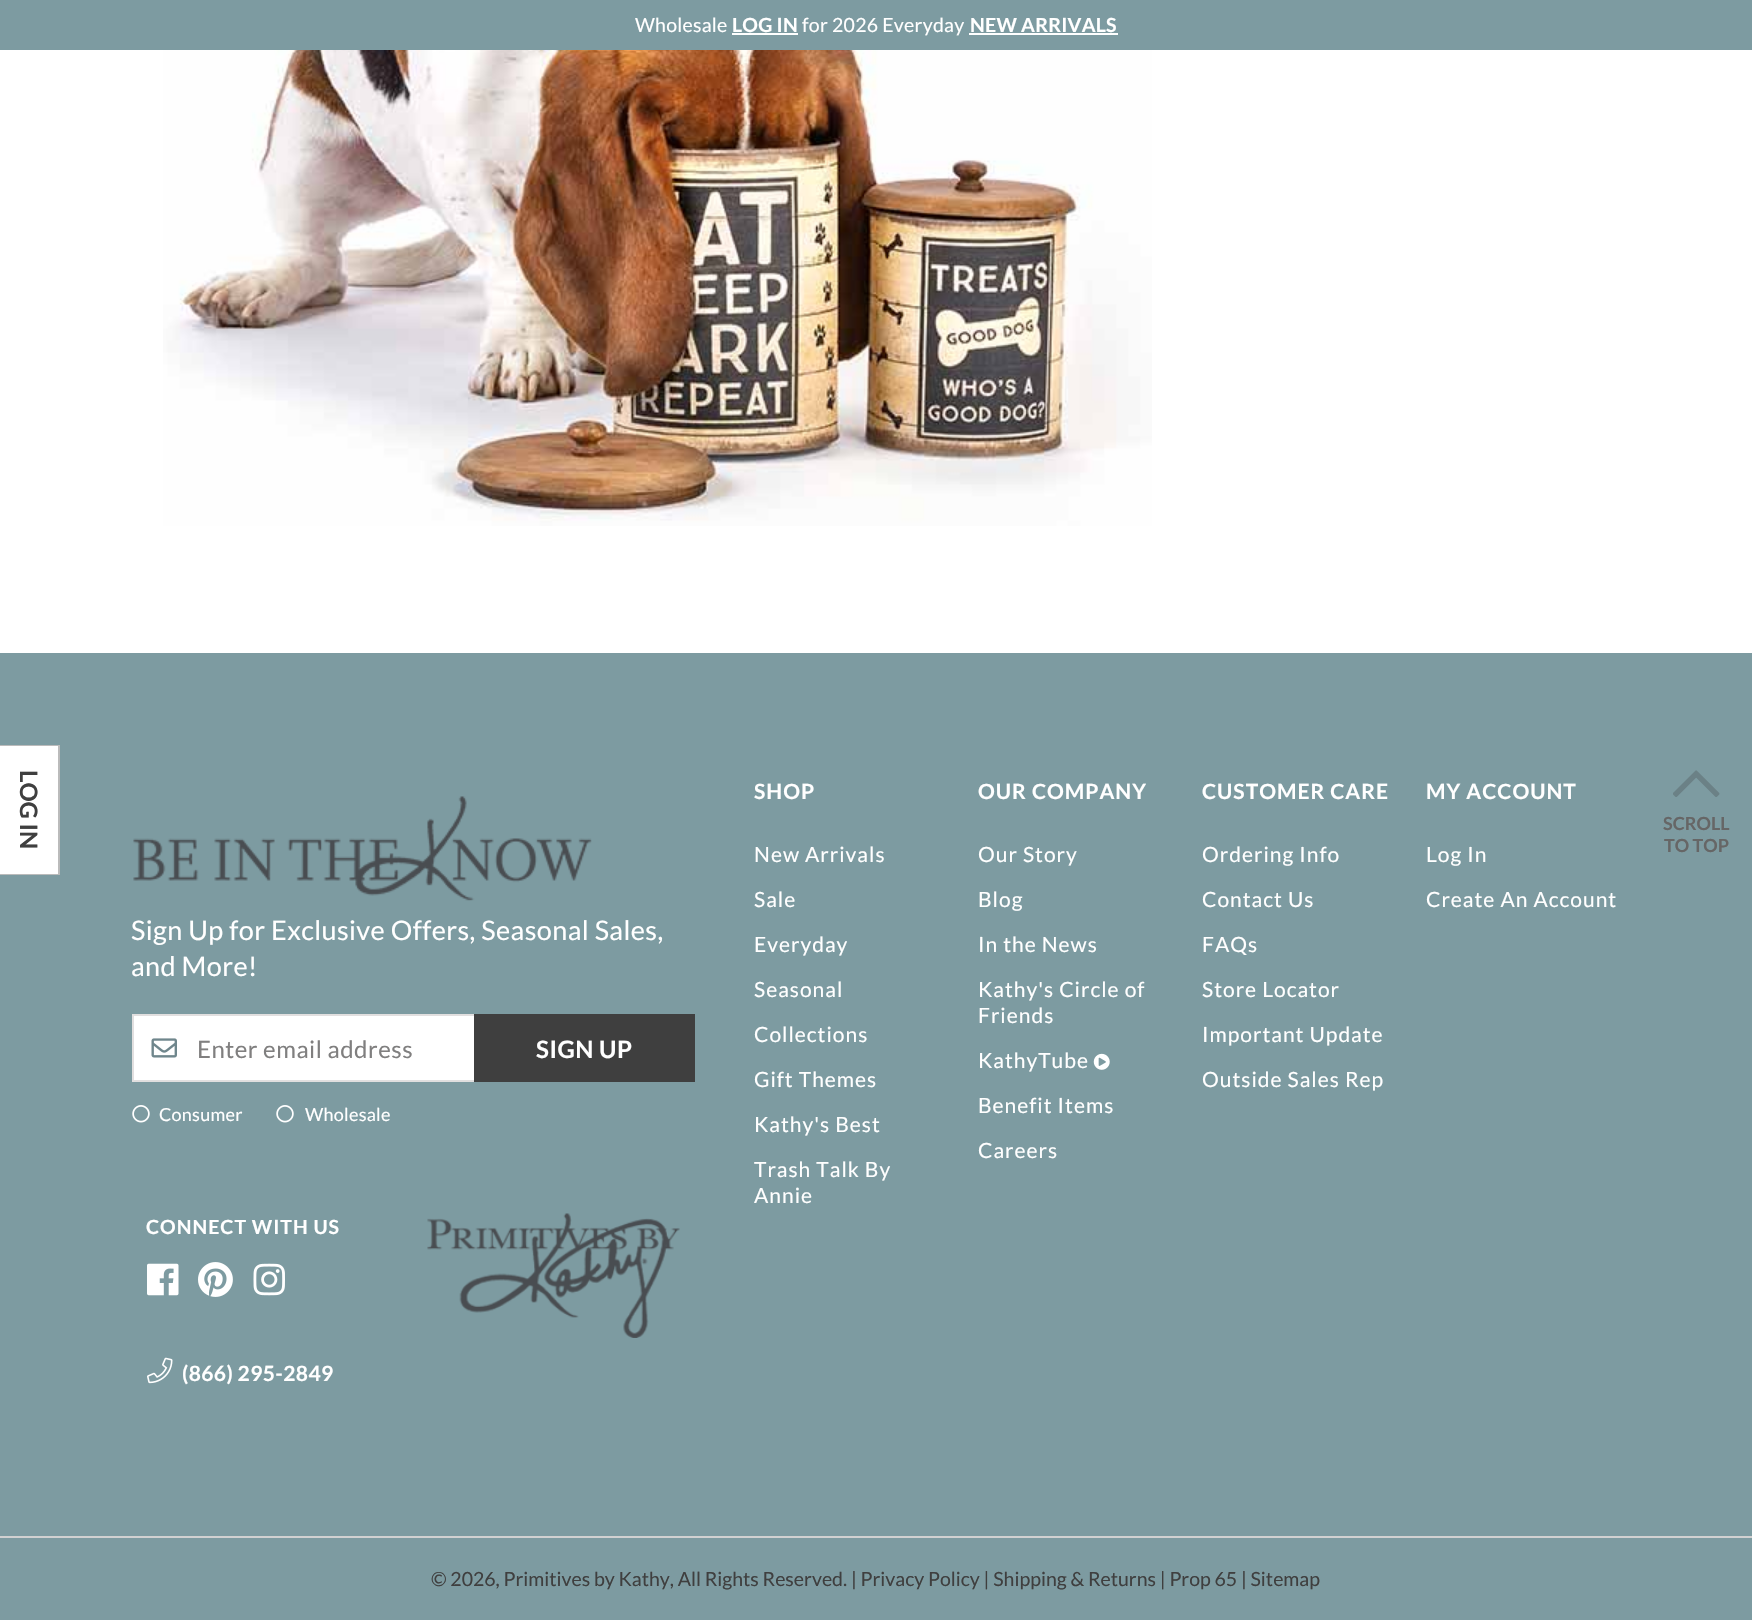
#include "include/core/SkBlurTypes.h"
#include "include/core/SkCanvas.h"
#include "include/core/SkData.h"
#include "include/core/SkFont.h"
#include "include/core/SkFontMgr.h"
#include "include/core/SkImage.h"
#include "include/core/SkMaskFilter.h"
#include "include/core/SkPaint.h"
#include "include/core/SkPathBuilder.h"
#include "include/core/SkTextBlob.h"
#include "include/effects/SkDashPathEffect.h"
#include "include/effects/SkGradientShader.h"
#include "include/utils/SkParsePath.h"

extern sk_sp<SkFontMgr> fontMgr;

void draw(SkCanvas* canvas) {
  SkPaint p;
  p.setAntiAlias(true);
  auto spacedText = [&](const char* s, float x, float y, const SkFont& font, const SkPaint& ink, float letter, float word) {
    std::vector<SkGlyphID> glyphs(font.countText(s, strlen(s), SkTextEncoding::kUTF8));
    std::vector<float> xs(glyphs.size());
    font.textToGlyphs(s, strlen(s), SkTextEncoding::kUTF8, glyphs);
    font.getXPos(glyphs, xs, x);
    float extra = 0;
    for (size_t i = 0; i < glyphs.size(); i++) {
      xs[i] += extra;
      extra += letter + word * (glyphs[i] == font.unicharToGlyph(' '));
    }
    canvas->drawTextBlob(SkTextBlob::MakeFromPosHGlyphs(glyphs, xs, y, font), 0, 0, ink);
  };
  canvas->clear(SK_ColorWHITE);
  p.setColor(SkColorSetRGB(125, 155, 161));
  canvas->drawRect(SkRect::MakeLTRB(0, 653, 1752, 1620), p);
  p.setColor(SK_ColorWHITE);
  canvas->drawRect(SkRect::MakeLTRB(0, 746, 58, 874), p);
  p.setColor(SkColorSetRGB(187, 187, 187));
  canvas->drawRect(SkRect::MakeLTRB(58, 745, 60, 875), p);
  canvas->drawRect(SkRect::MakeLTRB(0, 874, 60, 875), p);
  canvas->drawRect(SkRect::MakeLTRB(0, 745, 60, 746), p);
  p.setColor(SkColorSetRGB(125, 155, 161));
  canvas->drawRect(SkRect::MakeLTRB(0, 0, 1752, 50), p);
  p.setColor(SK_ColorWHITE);
  canvas->drawRect(SkRect::MakeLTRB(732, 33, 798, 35), p);
  canvas->drawRect(SkRect::MakeLTRB(969, 33, 1118, 35), p);
  canvas->drawImageRect(SkImages::DeferredFromEncodedData(SkData::MakeFromFileName("images/1.png")), SkRect::MakeLTRB(163, 50, 1152, 526), SkSamplingOptions());
  canvas->drawImageRect(SkImages::DeferredFromEncodedData(SkData::MakeFromFileName("images/2.png")), SkRect::MakeLTRB(133, 796, 592, 901), SkSamplingOptions());
  canvas->drawRect(SkRect::MakeLTRB(133, 1015, 475, 1081), p);
  p.setStyle(SkPaint::kStroke_Style);
  p.setStrokeWidth(2);
  p.setColor(SkColorSetRGB(225, 223, 223));
  canvas->drawRect(SkRect::MakeLTRB(133, 1015, 475, 1081), p);
  canvas->drawImageRect(SkImages::DeferredFromEncodedData(SkData::MakeFromFileName("images/3.png")), SkRect::MakeLTRB(151, 1038, 177, 1058), SkSamplingOptions());
  p.setStyle(SkPaint::kFill_Style);
  p.setColor(SkColorSetRGB(63, 63, 63));
  canvas->drawRect(SkRect::MakeLTRB(474, 1014, 695, 1082), p);
  canvas->drawImageRect(SkImages::DeferredFromEncodedData(SkData::MakeFromFileName("images/4.png")), SkRect::MakeLTRB(132, 1105, 150, 1123), SkSamplingOptions());
  canvas->drawImageRect(SkImages::DeferredFromEncodedData(SkData::MakeFromFileName("images/4.png")), SkRect::MakeLTRB(276, 1105, 294, 1123), SkSamplingOptions());
  canvas->drawImageRect(SkImages::DeferredFromEncodedData(SkData::MakeFromFileName("images/5.png")), SkRect::MakeLTRB(147, 1263, 179, 1296), SkSamplingOptions());
  canvas->drawImageRect(SkImages::DeferredFromEncodedData(SkData::MakeFromFileName("images/6.png")), SkRect::MakeLTRB(198, 1262, 233, 1297), SkSamplingOptions());
  canvas->drawImageRect(SkImages::DeferredFromEncodedData(SkData::MakeFromFileName("images/7.png")), SkRect::MakeLTRB(253, 1263, 285, 1296), SkSamplingOptions());
  canvas->drawImageRect(SkImages::DeferredFromEncodedData(SkData::MakeFromFileName("images/8.png")), SkRect::MakeLTRB(147, 1357, 173, 1384), SkSamplingOptions());
  canvas->drawImageRect(SkImages::DeferredFromEncodedData(SkData::MakeFromFileName("images/9.png")), SkRect::MakeLTRB(427, 1213, 680, 1338), SkSamplingOptions());
  canvas->drawImageRect(SkImages::DeferredFromEncodedData(SkData::MakeFromFileName("images/10.png")), SkRect::MakeLTRB(1093, 1053, 1110, 1070), SkSamplingOptions());
  p.setColor(SkColorSetRGB(209, 209, 209));
  canvas->drawRect(SkRect::MakeLTRB(0, 1536, 1752, 1538), p);
  canvas->drawImageRect(SkImages::DeferredFromEncodedData(SkData::MakeFromFileName("images/11.png")), SkRect::MakeLTRB(1673, 770, 1720, 797), SkSamplingOptions());
  SkFont font1(fontMgr->matchFamilyStyle("Lato", SkFontStyle::Bold()), 24);
  font1.setSubpixel(true);
  p.setColor(SkColorSetRGB(63, 63, 63));
  canvas->save();
  canvas->rotate(90, 20, 770);
  canvas->drawString("LOG IN", 20, 770, font1, p);
  canvas->restore();
  SkFont font2(fontMgr->matchFamilyStyle("Lato", SkFontStyle::Normal()), 19.5f);
  font2.setSubpixel(true);
  p.setColor(SK_ColorWHITE);
  spacedText("Wholesale", 635, 32, font2, p, 0.25f, 0);
  SkFont font3(fontMgr->matchFamilyStyle("Lato", SkFontStyle::Bold()), 19.5f);
  font3.setSubpixel(true);
  spacedText("LOG IN", 732, 32, font3, p, 0.25f, 0);
  spacedText("for 2026 Everyday", 802, 32, font2, p, 0.25f, 0);
  spacedText("NEW ARRIVALS", 970, 32, font3, p, 0.25f, 0);
  SkFont font4(fontMgr->matchFamilyStyle("Lato", SkFontStyle::Normal()), 27);
  font4.setSubpixel(true);
  spacedText("Sign Up for Exclusive Offers, Seasonal Sales,", 131, 940, font4, p, 0.4f, 0);
  spacedText("and More!", 131, 976, font4, p, 0.4f, 0);
  SkFont font5(fontMgr->matchFamilyStyle("Lato", SkFontStyle::Normal()), 24);
  font5.setSubpixel(true);
  p.setColor(SkColorSetRGB(128, 127, 127));
  spacedText("Enter email address", 197, 1058, font5, p, 0.5f, 0);
  p.setColor(SK_ColorWHITE);
  spacedText("SIGN UP", 536, 1058, font1, p, 0.5f, 0);
  SkFont font6(fontMgr->matchFamilyStyle("Lato", SkFontStyle::Normal()), 18);
  font6.setSubpixel(true);
  spacedText("Consumer", 159, 1121, font6, p, 0.25f, 0);
  spacedText("Wholesale", 305, 1121, font6, p, 0.25f, 0);
  spacedText("CONNECT WITH US", 146, 1234, font3, p, 1, 0);
  SkFont font7(fontMgr->matchFamilyStyle("Lato", SkFontStyle::Bold()), 21);
  font7.setSubpixel(true);
  spacedText("(866) 295-2849", 182, 1381, font7, p, 0.4f, 0);
  spacedText("SHOP", 754, 799, font7, p, 1, 0);
  spacedText("OUR COMPANY", 978, 799, font7, p, 1, 0);
  spacedText("CUSTOMER CARE", 1202, 799, font7, p, 1, 0);
  spacedText("MY ACCOUNT", 1426, 799, font7, p, 1, 0);
  SkFont font8(fontMgr->matchFamilyStyle("Lato", SkFontStyle::Normal()), 21);
  font8.setSubpixel(true);
  spacedText("New Arrivals", 754, 862, font8, p, 1, 0);
  spacedText("Sale", 754, 907, font8, p, 1, 0);
  spacedText("Everyday", 754, 952, font8, p, 1, 0);
  spacedText("Seasonal", 754, 997, font8, p, 1, 0);
  spacedText("Collections", 754, 1042, font8, p, 1, 0);
  spacedText("Gift Themes", 754, 1087, font8, p, 1, 0);
  spacedText("Kathy's Best", 754, 1132, font8, p, 1, 0);
  spacedText("Trash Talk By", 754, 1177, font8, p, 1, 0);
  spacedText("Annie", 754, 1203, font8, p, 1, 0);
  spacedText("Our Story", 978, 862, font8, p, 1, 0);
  spacedText("Blog", 978, 907, font8, p, 1, 0);
  spacedText("In the News", 978, 952, font8, p, 1, 0);
  spacedText("Kathy's Circle of", 978, 997, font8, p, 1, 0);
  spacedText("Friends", 978, 1023, font8, p, 1, 0);
  spacedText("KathyTube", 978, 1068, font8, p, 1, 0);
  spacedText("Benefit Items", 978, 1113, font8, p, 1, 0);
  spacedText("Careers", 978, 1158, font8, p, 1, 0);
  spacedText("Ordering Info", 1202, 862, font8, p, 1, 0);
  spacedText("Contact Us", 1202, 907, font8, p, 1, 0);
  spacedText("FAQs", 1202, 952, font8, p, 1, 0);
  spacedText("Store Locator", 1202, 997, font8, p, 1, 0);
  spacedText("Important Update", 1202, 1042, font8, p, 1, 0);
  spacedText("Outside Sales Rep", 1202, 1087, font8, p, 1, 0);
  spacedText("Log In", 1426, 862, font8, p, 1, 0);
  spacedText("Create An Account", 1426, 907, font8, p, 1, 0);
  p.setColor(SkColorSetRGB(63, 63, 63));
  canvas->drawString("© 2026, Primitives by Kathy, All Rights Reserved. | Privacy Policy | Shipping & Returns | Prop 65 | Sitemap", 431, 1586, font2, p);
  SkFont font9(fontMgr->matchFamilyStyle("Lato", SkFontStyle::Bold()), 18);
  font9.setSubpixel(true);
  p.setColor(SkColorSetRGB(102, 102, 102));
  canvas->drawString("SCROLL", 1663, 830, font9, p);
  canvas->drawString("TO TOP", 1664, 852, font9, p);
}
